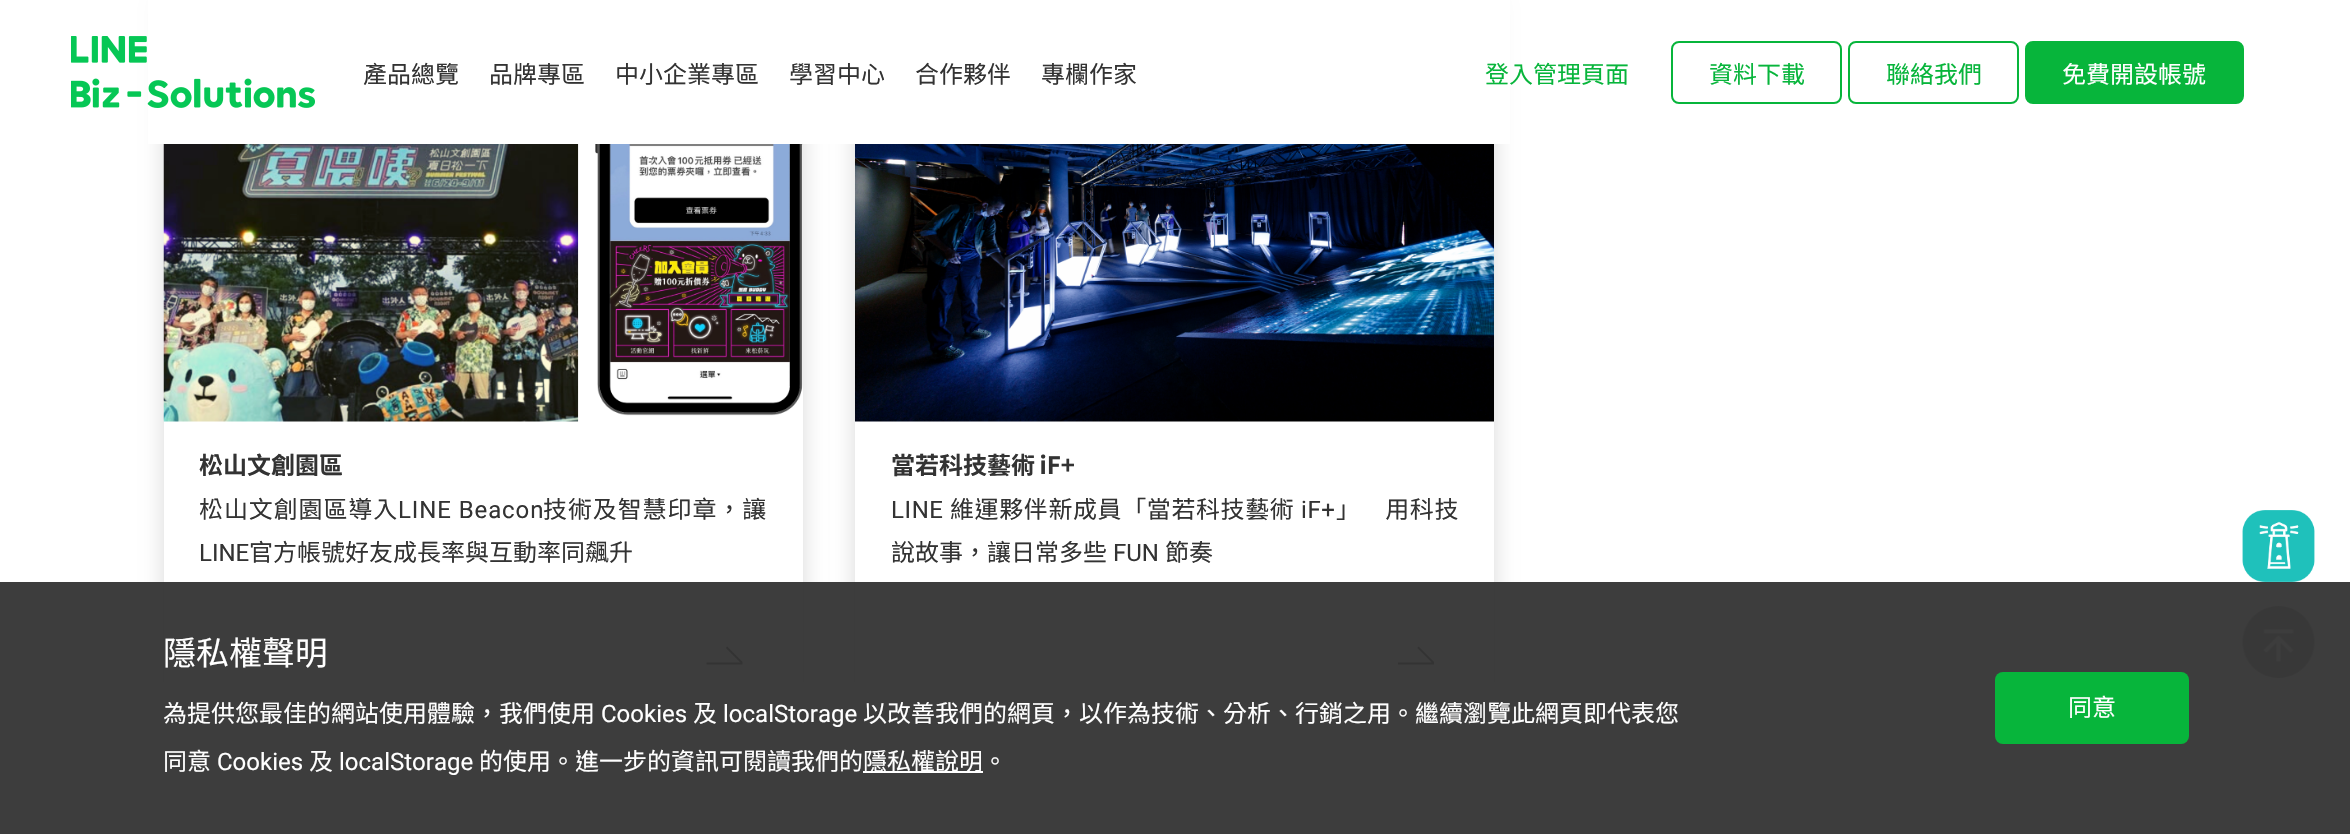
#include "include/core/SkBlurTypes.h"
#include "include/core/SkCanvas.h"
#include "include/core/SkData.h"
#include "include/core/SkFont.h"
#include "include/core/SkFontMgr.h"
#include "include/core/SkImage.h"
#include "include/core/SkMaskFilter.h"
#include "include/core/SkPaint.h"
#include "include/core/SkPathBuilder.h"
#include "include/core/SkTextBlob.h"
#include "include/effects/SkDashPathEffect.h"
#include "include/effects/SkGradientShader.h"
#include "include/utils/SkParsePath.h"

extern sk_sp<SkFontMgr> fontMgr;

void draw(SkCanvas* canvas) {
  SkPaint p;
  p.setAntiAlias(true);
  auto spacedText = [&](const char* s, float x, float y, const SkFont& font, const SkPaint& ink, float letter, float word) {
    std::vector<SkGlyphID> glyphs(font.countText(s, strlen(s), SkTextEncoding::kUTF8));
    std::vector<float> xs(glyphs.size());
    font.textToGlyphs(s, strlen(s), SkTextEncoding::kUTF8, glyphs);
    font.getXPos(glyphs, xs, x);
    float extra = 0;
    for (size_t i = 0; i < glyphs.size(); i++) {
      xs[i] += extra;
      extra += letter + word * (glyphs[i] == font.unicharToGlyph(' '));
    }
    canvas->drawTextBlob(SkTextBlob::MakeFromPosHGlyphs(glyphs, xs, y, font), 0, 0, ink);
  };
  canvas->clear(SK_ColorWHITE);
  p.setColor(SkColorSetARGB(38, 0, 0, 0));
  p.setMaskFilter(SkMaskFilter::MakeBlur(kNormal_SkBlurStyle, 11));
  canvas->drawRoundRect(SkRect::MakeLTRB(164, -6, 803, 710), 15, 15, p);
  p.setMaskFilter(nullptr);
  p.setColor(SK_ColorWHITE);
  canvas->drawRoundRect(SkRect::MakeLTRB(164, -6, 803, 710), 15, 15, p);
  p.setColor(SkColorSetARGB(38, 0, 0, 0));
  p.setMaskFilter(SkMaskFilter::MakeBlur(kNormal_SkBlurStyle, 11));
  canvas->drawRoundRect(SkRect::MakeLTRB(855, -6, 1494, 710), 15, 15, p);
  p.setMaskFilter(nullptr);
  p.setColor(SK_ColorWHITE);
  canvas->drawRoundRect(SkRect::MakeLTRB(855, -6, 1494, 710), 15, 15, p);
  canvas->drawRect(SkRect::MakeLTRB(148, 0, 1510, 144), p);
  canvas->drawImageRect(SkImages::DeferredFromEncodedData(SkData::MakeFromFileName("images/1.png")), SkRect::MakeLTRB(71, 36, 315, 108), SkSamplingOptions());
  p.setStyle(SkPaint::kStroke_Style);
  p.setStrokeWidth(2);
  p.setColor(SkColorSetRGB(7, 181, 59));
  canvas->drawRoundRect(SkRect::MakeLTRB(1672, 42, 1841, 103), 7, 7, p);
  canvas->drawRoundRect(SkRect::MakeLTRB(1849, 42, 2018, 103), 7, 7, p);
  p.setStyle(SkPaint::kFill_Style);
  canvas->drawRoundRect(SkRect::MakeLTRB(2026, 42, 2243, 103), 7, 7, p);
  p.setStyle(SkPaint::kStroke_Style);
  canvas->drawRoundRect(SkRect::MakeLTRB(2026, 42, 2243, 103), 7, 7, p);
  canvas->drawImageRect(SkImages::DeferredFromEncodedData(SkData::MakeFromFileName("images/2.png")), SkRect::MakeLTRB(163, 144, 803, 422), SkSamplingOptions());
  p.setStyle(SkPaint::kFill_Style);
  p.setColor(SK_ColorWHITE);
  canvas->drawPath(SkPathBuilder().moveTo(164, 422).lineTo(803, 422).lineTo(803, 695).cubicTo(803, 703.5f, 796.5f, 710, 788, 710).lineTo(179, 710).cubicTo(170.5f, 710, 164, 703.5f, 164, 695).close().detach(), p);
  canvas->drawImageRect(SkImages::DeferredFromEncodedData(SkData::MakeFromFileName("images/3.png")), SkRect::MakeLTRB(706, 646, 743, 665), SkSamplingOptions());
  canvas->drawImageRect(SkImages::DeferredFromEncodedData(SkData::MakeFromFileName("images/4.png")), SkRect::MakeLTRB(855, 144, 1494, 422), SkSamplingOptions());
  canvas->drawPath(SkPathBuilder().moveTo(855, 422).lineTo(1494, 422).lineTo(1494, 695).cubicTo(1494, 703.5f, 1487.5f, 710, 1479, 710).lineTo(870, 710).cubicTo(861.5f, 710, 855, 703.5f, 855, 695).close().detach(), p);
  canvas->drawImageRect(SkImages::DeferredFromEncodedData(SkData::MakeFromFileName("images/5.png")), SkRect::MakeLTRB(1398, 646, 1434, 665), SkSamplingOptions());
  canvas->drawImageRect(SkImages::DeferredFromEncodedData(SkData::MakeFromFileName("images/6.png")), SkRect::MakeLTRB(2242, 510, 2315, 582), SkSamplingOptions());
  canvas->drawImageRect(SkImages::DeferredFromEncodedData(SkData::MakeFromFileName("images/7.png")), SkRect::MakeLTRB(2242, 606, 2315, 678), SkSamplingOptions());
  p.setColor(SkColorSetARGB(242, 51, 51, 51));
  canvas->drawRect(SkRect::MakeLTRB(0, 582, 2350, 834), p);
  p.setColor(SK_ColorWHITE);
  canvas->drawRect(SkRect::MakeLTRB(863, 771, 983, 773), p);
  p.setColor(SkColorSetRGB(7, 181, 59));
  canvas->drawRoundRect(SkRect::MakeLTRB(1995, 672, 2189, 744), 8, 8, p);
  SkFont font1(fontMgr->matchFamilyStyle("Noto Sans TC", SkFontStyle::Normal()), 24);
  font1.setSubpixel(true);
  p.setColor(SkColorSetRGB(51, 51, 51));
  canvas->drawString("產品總覽", 363, 83, font1, p);
  canvas->drawString("品牌專區", 489, 83, font1, p);
  canvas->drawString("中小企業專區", 615, 83, font1, p);
  canvas->drawString("學習中心", 789, 83, font1, p);
  canvas->drawString("合作夥伴", 915, 83, font1, p);
  canvas->drawString("專欄作家", 1041, 83, font1, p);
  p.setColor(SkColorSetRGB(7, 181, 59));
  canvas->drawString("登入管理頁面", 1485, 83, font1, p);
  canvas->drawString("資料下載", 1709, 83, font1, p);
  canvas->drawString("聯絡我們", 1886, 83, font1, p);
  p.setColor(SK_ColorWHITE);
  canvas->drawString("免費開設帳號", 2062, 83, font1, p);
  SkFont font2(fontMgr->matchFamilyStyle("Noto Sans TC", SkFontStyle::Bold()), 24);
  font2.setSubpixel(true);
  p.setColor(SkColorSetRGB(51, 51, 51));
  canvas->drawString("松山文創園區", 199, 474, font2, p);
  spacedText("松山文創園區導入", 199, 518, font1, p, 0.9f, 0);
  SkFont font3(fontMgr->matchFamilyStyle("Roboto", SkFontStyle::Normal()), 24);
  font3.setSubpixel(true);
  spacedText("LINE Beacon", 398, 518, font3, p, 0.9f, 0);
  spacedText("技術及智慧印章，讓", 543, 518, font1, p, 0.9f, 0);
  canvas->drawString("LINE", 199, 561, font3, p);
  canvas->drawString("官方帳號好友成長率與互動率同飆升", 249, 561, font1, p);
  spacedText("當若科技藝術 iF+", 891, 474, font2, p, 0, -1);
  spacedText("LINE", 891, 518, font3, p, 0.6f, 0);
  spacedText("維運夥伴新成員「當若科技藝術", 950, 518, font1, p, 0.6f, 0);
  spacedText("iF+", 1301, 518, font3, p, 0.6f, 0);
  spacedText("」　用科技", 1336, 518, font1, p, 0.6f, 0);
  canvas->drawString("說故事，讓日常多些", 891, 561, font1, p);
  canvas->drawString("FUN", 1113, 561, font3, p);
  canvas->drawString("節奏", 1165, 561, font1, p);
  SkFont font4(fontMgr->matchFamilyStyle("Noto Sans TC", SkFontStyle::Normal()), 33);
  font4.setSubpixel(true);
  p.setColor(SK_ColorWHITE);
  canvas->drawString("隱私權聲明", 163, 665, font4, p);
  canvas->drawString("為提供您最佳的網站使用體驗，我們使用", 163, 722, font1, p);
  canvas->drawString("Cookies", 601, 722, font3, p);
  canvas->drawString("及", 693, 722, font1, p);
  canvas->drawString("localStorage", 723, 722, font3, p);
  canvas->drawString("以改善我們的網頁，以作為技術、分析、行銷之用。繼續瀏覽此網頁即代表您", 863, 722, font1, p);
  canvas->drawString("同意", 163, 770, font1, p);
  canvas->drawString("Cookies", 217, 770, font3, p);
  canvas->drawString("及", 309, 770, font1, p);
  canvas->drawString("localStorage", 339, 770, font3, p);
  canvas->drawString("的使用。進一步的資訊可閱讀我們的", 479, 770, font1, p);
  canvas->drawString("隱私權說明。", 863, 770, font1, p);
  canvas->drawString("同意", 2068, 716, font1, p);
}
